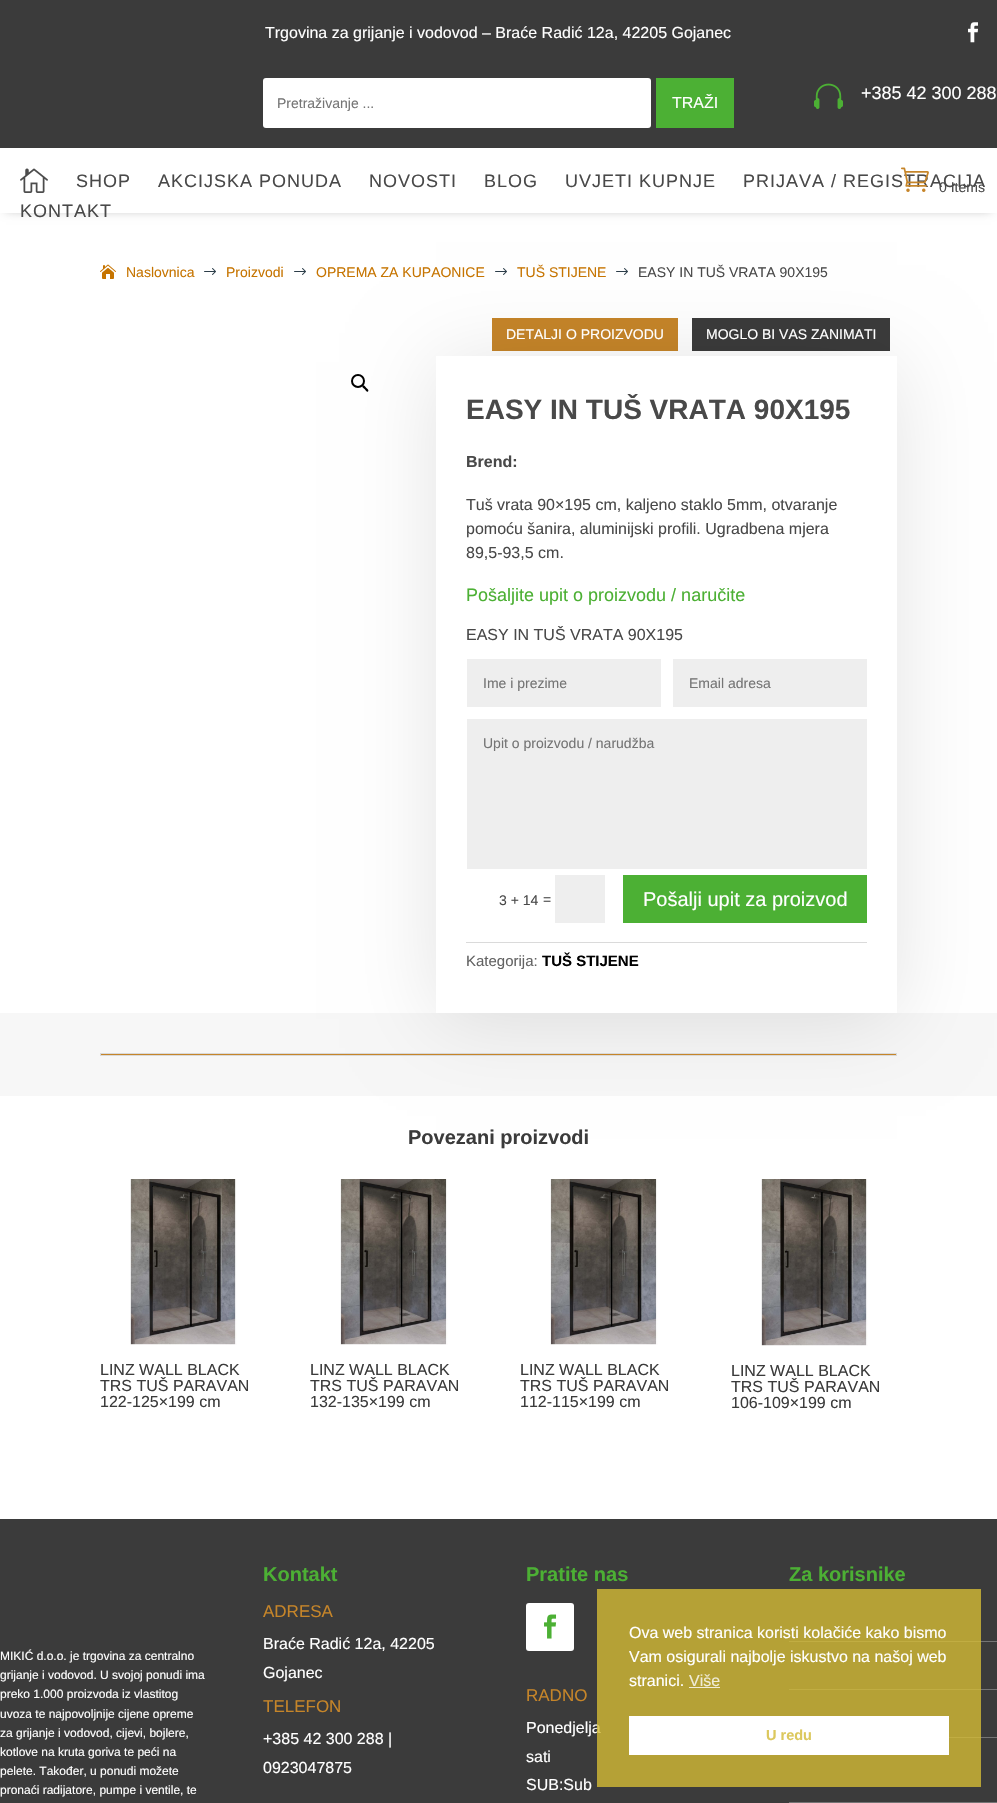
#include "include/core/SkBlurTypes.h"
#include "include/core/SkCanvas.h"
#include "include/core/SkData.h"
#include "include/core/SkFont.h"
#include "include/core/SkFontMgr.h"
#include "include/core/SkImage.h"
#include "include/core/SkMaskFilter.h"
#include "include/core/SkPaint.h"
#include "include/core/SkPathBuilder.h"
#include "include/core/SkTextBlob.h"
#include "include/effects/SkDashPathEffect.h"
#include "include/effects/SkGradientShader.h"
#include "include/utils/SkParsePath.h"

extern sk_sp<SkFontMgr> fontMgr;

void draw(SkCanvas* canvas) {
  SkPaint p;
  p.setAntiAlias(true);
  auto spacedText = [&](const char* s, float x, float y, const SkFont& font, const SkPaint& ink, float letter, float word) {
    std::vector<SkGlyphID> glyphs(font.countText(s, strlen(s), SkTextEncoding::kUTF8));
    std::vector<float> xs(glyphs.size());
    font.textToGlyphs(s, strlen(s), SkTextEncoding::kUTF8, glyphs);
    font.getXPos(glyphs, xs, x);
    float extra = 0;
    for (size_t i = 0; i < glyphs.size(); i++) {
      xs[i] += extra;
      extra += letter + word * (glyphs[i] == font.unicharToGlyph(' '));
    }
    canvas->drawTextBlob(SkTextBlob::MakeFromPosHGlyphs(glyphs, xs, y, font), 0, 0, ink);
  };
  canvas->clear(SK_ColorWHITE);
  p.setColor(SkColorSetRGB(59, 59, 59));
  canvas->drawRect(SkRect::MakeLTRB(0, 0, 997, 148), p);
  p.setColor(SK_ColorWHITE);
  canvas->drawRoundRect(SkRect::MakeLTRB(263, 78, 651, 128), 3, 3, p);
  p.setColor(SkColorSetRGB(76, 176, 52));
  canvas->drawRect(SkRect::MakeLTRB(656, 78, 734, 128), p);
  canvas->drawImageRect(SkImages::DeferredFromEncodedData(SkData::MakeFromFileName("images/1.png")), SkRect::MakeLTRB(968, 22, 978, 43), SkSamplingOptions());
  canvas->drawImageRect(SkImages::DeferredFromEncodedData(SkData::MakeFromFileName("images/2.png")), SkRect::MakeLTRB(814, 83, 843, 109), SkSamplingOptions());
  p.setColor(SkColorSetARGB(77, 0, 0, 0));
  p.setMaskFilter(SkMaskFilter::MakeBlur(kNormal_SkBlurStyle, 5));
  canvas->drawRect(SkRect::MakeLTRB(6, 157, 991, 210), p);
  p.setMaskFilter(nullptr);
  p.setColor(SK_ColorWHITE);
  canvas->drawRect(SkRect::MakeLTRB(0, 148, 997, 213), p);
  canvas->drawImageRect(SkImages::DeferredFromEncodedData(SkData::MakeFromFileName("images/3.png")), SkRect::MakeLTRB(20, 168, 48, 193), SkSamplingOptions());
  canvas->drawImageRect(SkImages::DeferredFromEncodedData(SkData::MakeFromFileName("images/5.png")), SkRect::MakeLTRB(100, 264, 116, 279), SkSamplingOptions());
  canvas->drawImageRect(SkImages::DeferredFromEncodedData(SkData::MakeFromFileName("images/6.png")), SkRect::MakeLTRB(204, 268, 216, 275), SkSamplingOptions());
  canvas->drawImageRect(SkImages::DeferredFromEncodedData(SkData::MakeFromFileName("images/6.png")), SkRect::MakeLTRB(294, 268, 306, 275), SkSamplingOptions());
  canvas->drawImageRect(SkImages::DeferredFromEncodedData(SkData::MakeFromFileName("images/6.png")), SkRect::MakeLTRB(495, 268, 507, 275), SkSamplingOptions());
  canvas->drawImageRect(SkImages::DeferredFromEncodedData(SkData::MakeFromFileName("images/6.png")), SkRect::MakeLTRB(616, 268, 628, 275), SkSamplingOptions());
  p.setColor(SkColorSetRGB(198, 133, 41));
  canvas->drawRect(SkRect::MakeLTRB(492, 318, 678, 351), p);
  p.setColor(SkColorSetRGB(59, 59, 59));
  canvas->drawRect(SkRect::MakeLTRB(692, 318, 890, 351), p);
  p.setStyle(SkPaint::kStroke_Style);
  p.setStrokeWidth(2);
  p.setColor(SK_ColorBLACK);
  canvas->drawCircle(358, 381, 6, p);
  p.setStyle(SkPaint::kFill_Style);
  canvas->drawPath(SkPathBuilder().moveTo(362.5f, 385.5f).cubicTo(364, 384.5f, 365.5f, 387, 366, 387.5f).cubicTo(366.5f, 388.5f, 369.5f, 390, 368, 391.5f).cubicTo(367, 392.5f, 365.5f, 390, 364.5f, 389).cubicTo(364, 388.5f, 361.5f, 387, 362.5f, 385.5f).close().detach(), p);
  p.setColor(SkColorSetRGB(247, 247, 247));
  canvas->drawRect(SkRect::MakeLTRB(0, 1013, 997, 1096), p);
  canvas->save();
  canvas->clipPath(SkPathBuilder(SkPathFillType::kEvenOdd).moveTo(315, 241).lineTo(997, 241).lineTo(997, 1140).lineTo(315, 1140).close().moveTo(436, 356).lineTo(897, 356).lineTo(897, 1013).lineTo(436, 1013).close().detach(), true);
  p.setColor(SkColorSetARGB(28, 0, 0, 0));
  p.setMaskFilter(SkMaskFilter::MakeBlur(kNormal_SkBlurStyle, 40));
  canvas->drawRect(SkRect::MakeLTRB(436, 362, 897, 1019), p);
  p.setMaskFilter(nullptr);
  canvas->restore();
  p.setColor(SkColorSetRGB(238, 238, 238));
  canvas->drawRect(SkRect::MakeLTRB(467, 659, 661, 707), p);
  canvas->drawRect(SkRect::MakeLTRB(673, 659, 867, 707), p);
  canvas->drawRect(SkRect::MakeLTRB(467, 719, 867, 869), p);
  canvas->drawRect(SkRect::MakeLTRB(555, 875, 605, 923), p);
  p.setColor(SkColorSetRGB(76, 176, 52));
  canvas->drawRect(SkRect::MakeLTRB(623, 875, 867, 923), p);
  p.setColor(SkColorSetRGB(218, 218, 218));
  canvas->drawRect(SkRect::MakeLTRB(466, 942, 867, 943), p);
  p.setStyle(SkPaint::kStroke_Style);
  p.setStrokeWidth(1);
  p.setColor(SkColorSetRGB(217, 217, 217));
  canvas->drawRect(SkRect::MakeLTRB(100.5f, 1053.5f, 896.5f, 1055.5f), p);
  p.setStyle(SkPaint::kFill_Style);
  p.setColor(SkColorSetRGB(198, 133, 41));
  canvas->drawRect(SkRect::MakeLTRB(101, 1054, 896, 1055), p);
  canvas->drawImageRect(SkImages::DeferredFromEncodedData(SkData::MakeFromFileName("images/7.png")), SkRect::MakeLTRB(130, 1179, 237, 1345), SkSamplingOptions());
  canvas->drawImageRect(SkImages::DeferredFromEncodedData(SkData::MakeFromFileName("images/8.png")), SkRect::MakeLTRB(340, 1179, 448, 1345), SkSamplingOptions());
  canvas->drawImageRect(SkImages::DeferredFromEncodedData(SkData::MakeFromFileName("images/8.png")), SkRect::MakeLTRB(550, 1179, 658, 1345), SkSamplingOptions());
  canvas->drawImageRect(SkImages::DeferredFromEncodedData(SkData::MakeFromFileName("images/9.png")), SkRect::MakeLTRB(761, 1179, 868, 1346), SkSamplingOptions());
  p.setColor(SkColorSetRGB(59, 59, 59));
  canvas->drawRect(SkRect::MakeLTRB(0, 1519, 997, 1803), p);
  p.setColor(SK_ColorWHITE);
  canvas->drawRoundRect(SkRect::MakeLTRB(526, 1603, 574, 1651), 3, 3, p);
  canvas->drawImageRect(SkImages::DeferredFromEncodedData(SkData::MakeFromFileName("images/10.png")), SkRect::MakeLTRB(544, 1614, 557, 1639), SkSamplingOptions());
  p.setColor(SkColorSetRGB(117, 117, 117));
  canvas->drawRect(SkRect::MakeLTRB(789, 1641, 997, 1642), p);
  canvas->drawRect(SkRect::MakeLTRB(789, 1689, 997, 1690), p);
  canvas->drawRect(SkRect::MakeLTRB(949, 1737, 997, 1738), p);
  canvas->drawRect(SkRect::MakeLTRB(789, 1802, 997, 1803), p);
  SkFont font1(fontMgr->matchFamilyStyle("Liberation Sans", SkFontStyle::Normal()), 16);
  font1.setSubpixel(true);
  p.setColor(SK_ColorWHITE);
  canvas->drawString("Trgovina za grijanje i vodovod – Braće Radić 12a, 42205 Gojanec", 265, 38, font1, p);
  SkFont font2(fontMgr->matchFamilyStyle("Liberation Sans", SkFontStyle::Normal()), 14);
  font2.setSubpixel(true);
  p.setColor(SkColorSetRGB(117, 117, 117));
  canvas->drawString("Pretraživanje ...", 277, 108, font2, p);
  p.setColor(SK_ColorWHITE);
  canvas->drawString("TRAŽI", 672, 108, font1, p);
  SkFont font3(fontMgr->matchFamilyStyle("Liberation Sans", SkFontStyle::Normal()), 18);
  font3.setSubpixel(true);
  canvas->drawString("+385 42 300 288", 861, 99, font3, p);
  p.setColor(SkColorSetRGB(73, 73, 73));
  spacedText("SHOP", 76, 187, font3, p, 1, 0);
  spacedText("AKCIJSKA PONUDA", 158, 187, font3, p, 1, 0);
  spacedText("NOVOSTI", 369, 187, font3, p, 1, 0);
  spacedText("BLOG", 484, 187, font3, p, 1, 0);
  spacedText("UVJETI KUPNJE", 565, 187, font3, p, 1, 0);
  spacedText("PRIJAVA / REGISTRACIJA", 743, 187, font3, p, 1, 0);
  spacedText("KONTAKT", 20, 217, font3, p, 1, 0);
  canvas->drawImageRect(SkImages::DeferredFromEncodedData(SkData::MakeFromFileName("images/4.png")), SkRect::MakeLTRB(901, 167, 929, 192), SkSamplingOptions());
  canvas->drawString("0 Items", 939, 192, font2, p);
  p.setColor(SkColorSetRGB(198, 116, 0));
  canvas->drawString("Naslovnica", 126, 277, font2, p);
  canvas->drawString("Proizvodi", 226, 277, font2, p);
  canvas->drawString("OPREMA ZA KUPAONICE", 316, 277, font2, p);
  canvas->drawString("TUŠ STIJENE", 517, 277, font2, p);
  p.setColor(SkColorSetRGB(73, 73, 73));
  canvas->drawString("EASY IN TUŠ VRATA 90X195", 638, 277, font2, p);
  p.setColor(SK_ColorWHITE);
  canvas->drawString("DETALJI O PROIZVODU", 506, 339, font2, p);
  canvas->drawString("MOGLO BI VAS ZANIMATI", 706, 339, font2, p);
  SkFont font4(fontMgr->matchFamilyStyle("Liberation Sans", SkFontStyle::Bold()), 28);
  font4.setSubpixel(true);
  p.setColor(SkColorSetRGB(73, 73, 73));
  canvas->drawString("EASY IN TUŠ VRATA 90X195", 466, 419, font4, p);
  SkFont font5(fontMgr->matchFamilyStyle("Liberation Sans", SkFontStyle::Bold()), 16);
  font5.setSubpixel(true);
  canvas->drawString("Brend:", 466, 467, font5, p);
  canvas->drawString("Tuš vrata 90×195 cm, kaljeno staklo 5mm, otvaranje", 466, 510, font1, p);
  canvas->drawString("pomoću šanira, aluminijski profili. Ugradbena mjera", 466, 534, font1, p);
  canvas->drawString("89,5-93,5 cm.", 466, 558, font1, p);
  p.setColor(SkColorSetRGB(76, 176, 52));
  canvas->drawString("Pošaljite upit o proizvodu / naručite", 466, 601, font3, p);
  p.setColor(SkColorSetRGB(73, 73, 73));
  canvas->drawString("EASY IN TUŠ VRATA 90X195", 466, 640, font1, p);
  p.setColor(SkColorSetRGB(117, 117, 117));
  canvas->drawString("Ime i prezime", 483, 688, font2, p);
  canvas->drawString("Email adresa", 689, 688, font2, p);
  canvas->drawString("Upit o proizvodu / narudžba", 483, 748, font2, p);
  p.setColor(SkColorSetRGB(73, 73, 73));
  canvas->drawString("3 + 14", 499, 905, font2, p);
  canvas->drawString("=", 543, 904, font2, p);
  SkFont font6(fontMgr->matchFamilyStyle("Liberation Sans", SkFontStyle::Normal()), 20);
  font6.setSubpixel(true);
  p.setColor(SK_ColorWHITE);
  canvas->drawString("Pošalji upit za proizvod", 643, 906, font6, p);
  SkFont font7(fontMgr->matchFamilyStyle("Liberation Sans", SkFontStyle::Normal()), 15);
  font7.setSubpixel(true);
  p.setColor(SkColorSetRGB(99, 99, 99));
  canvas->drawString("Kategorija:", 466, 966, font7, p);
  SkFont font8(fontMgr->matchFamilyStyle("Liberation Sans", SkFontStyle::Bold()), 15);
  font8.setSubpixel(true);
  p.setColor(SK_ColorBLACK);
  canvas->drawString("TUŠ STIJENE", 542, 966, font8, p);
  SkFont font9(fontMgr->matchFamilyStyle("Liberation Sans", SkFontStyle::Bold()), 20);
  font9.setSubpixel(true);
  p.setColor(SkColorSetRGB(59, 59, 59));
  canvas->drawString("Povezani proizvodi", 408, 1144, font9, p);
  canvas->drawString("LINZ WALL BLACK", 100, 1375, font1, p);
  canvas->drawString("TRS TUŠ PARAVAN", 100, 1391, font1, p);
  canvas->drawString("122-125×199 cm", 100, 1407, font1, p);
  canvas->drawString("LINZ WALL BLACK", 310, 1375, font1, p);
  canvas->drawString("TRS TUŠ PARAVAN", 310, 1391, font1, p);
  canvas->drawString("132-135×199 cm", 310, 1407, font1, p);
  canvas->drawString("LINZ WALL BLACK", 520, 1375, font1, p);
  canvas->drawString("TRS TUŠ PARAVAN", 520, 1391, font1, p);
  canvas->drawString("112-115×199 cm", 520, 1407, font1, p);
  canvas->drawString("LINZ WALL BLACK", 731, 1376, font1, p);
  canvas->drawString("TRS TUŠ PARAVAN", 731, 1392, font1, p);
  canvas->drawString("106-109×199 cm", 731, 1408, font1, p);
  p.setColor(SkColorSetRGB(76, 176, 52));
  canvas->drawString("Kontakt", 263, 1581, font9, p);
  SkFont font10(fontMgr->matchFamilyStyle("Liberation Sans", SkFontStyle::Normal()), 17);
  font10.setSubpixel(true);
  p.setColor(SkColorSetRGB(198, 133, 41));
  canvas->drawString("ADRESA", 263, 1617, font10, p);
  p.setColor(SK_ColorWHITE);
  canvas->drawString("Braće Radić 12a, 42205", 263, 1649, font1, p);
  canvas->drawString("Gojanec", 263, 1678, font1, p);
  p.setColor(SkColorSetRGB(198, 133, 41));
  canvas->drawString("TELEFON", 263, 1712, font10, p);
  p.setColor(SK_ColorWHITE);
  canvas->drawString("+385 42 300 288 |", 263, 1744, font1, p);
  canvas->drawString("0923047875", 263, 1773, font1, p);
  p.setColor(SkColorSetRGB(76, 176, 52));
  canvas->drawString("Pratite nas", 526, 1581, font9, p);
  p.setColor(SkColorSetRGB(198, 133, 41));
  canvas->drawString("RADNO", 526, 1701, font10, p);
  p.setColor(SK_ColorWHITE);
  canvas->drawString("Ponedjelja", 526, 1733, font1, p);
  canvas->drawString("sati", 526, 1762, font1, p);
  canvas->drawString("SUB:Sub", 526, 1790, font1, p);
  p.setColor(SkColorSetRGB(76, 176, 52));
  canvas->drawString("Za korisnike", 789, 1581, font9, p);
  SkFont font11(fontMgr->matchFamilyStyle("Liberation Sans", SkFontStyle::Normal()), 12);
  font11.setSubpixel(true);
  p.setColor(SK_ColorWHITE);
  canvas->drawString("MIKIĆ d.o.o. je trgovina za centralno", 0, 1660, font11, p);
  canvas->drawString("grijanje i vodovod. U svojoj ponudi ima", 0, 1679, font11, p);
  canvas->drawString("preko 1.000 proizvoda iz vlastitog", 0, 1698, font11, p);
  canvas->drawString("uvoza te najpovoljnije cijene opreme", 0, 1718, font11, p);
  canvas->drawString("za grijanje i vodovod, cijevi, bojlere,", 0, 1737, font11, p);
  canvas->drawString("kotlove na kruta goriva te peći na", 0, 1756, font11, p);
  canvas->drawString("pelete. Također, u ponudi možete", 0, 1775, font11, p);
  canvas->drawString("pronaći radijatore, pumpe i ventile, te", 0, 1794, font11, p);
  p.setColor(SkColorSetARGB(204, 211, 186, 52));
  canvas->drawRect(SkRect::MakeLTRB(597, 1589, 981, 1787), p);
  p.setColor(SK_ColorWHITE);
  canvas->drawString("Ova web stranica koristi kolačiće kako bismo", 629, 1638, font1, p);
  canvas->drawString("Vam osigurali najbolje iskustvo na našoj web", 629, 1662, font1, p);
  canvas->drawString("stranici.", 629, 1686, font1, p);
  p.setColor(SkColorSetRGB(240, 236, 215));
  canvas->drawString("Više", 689, 1686, font1, p);
  canvas->drawRect(SkRect::MakeLTRB(689, 1687, 720, 1688), p);
  p.setColor(SK_ColorWHITE);
  canvas->drawRect(SkRect::MakeLTRB(629, 1716, 949, 1755), p);
  SkFont font12(fontMgr->matchFamilyStyle("Liberation Sans", SkFontStyle::Bold()), 14.5f);
  font12.setSubpixel(true);
  p.setColor(SkColorSetRGB(220, 200, 93));
  canvas->drawString("U redu", 766, 1740, font12, p);
}
